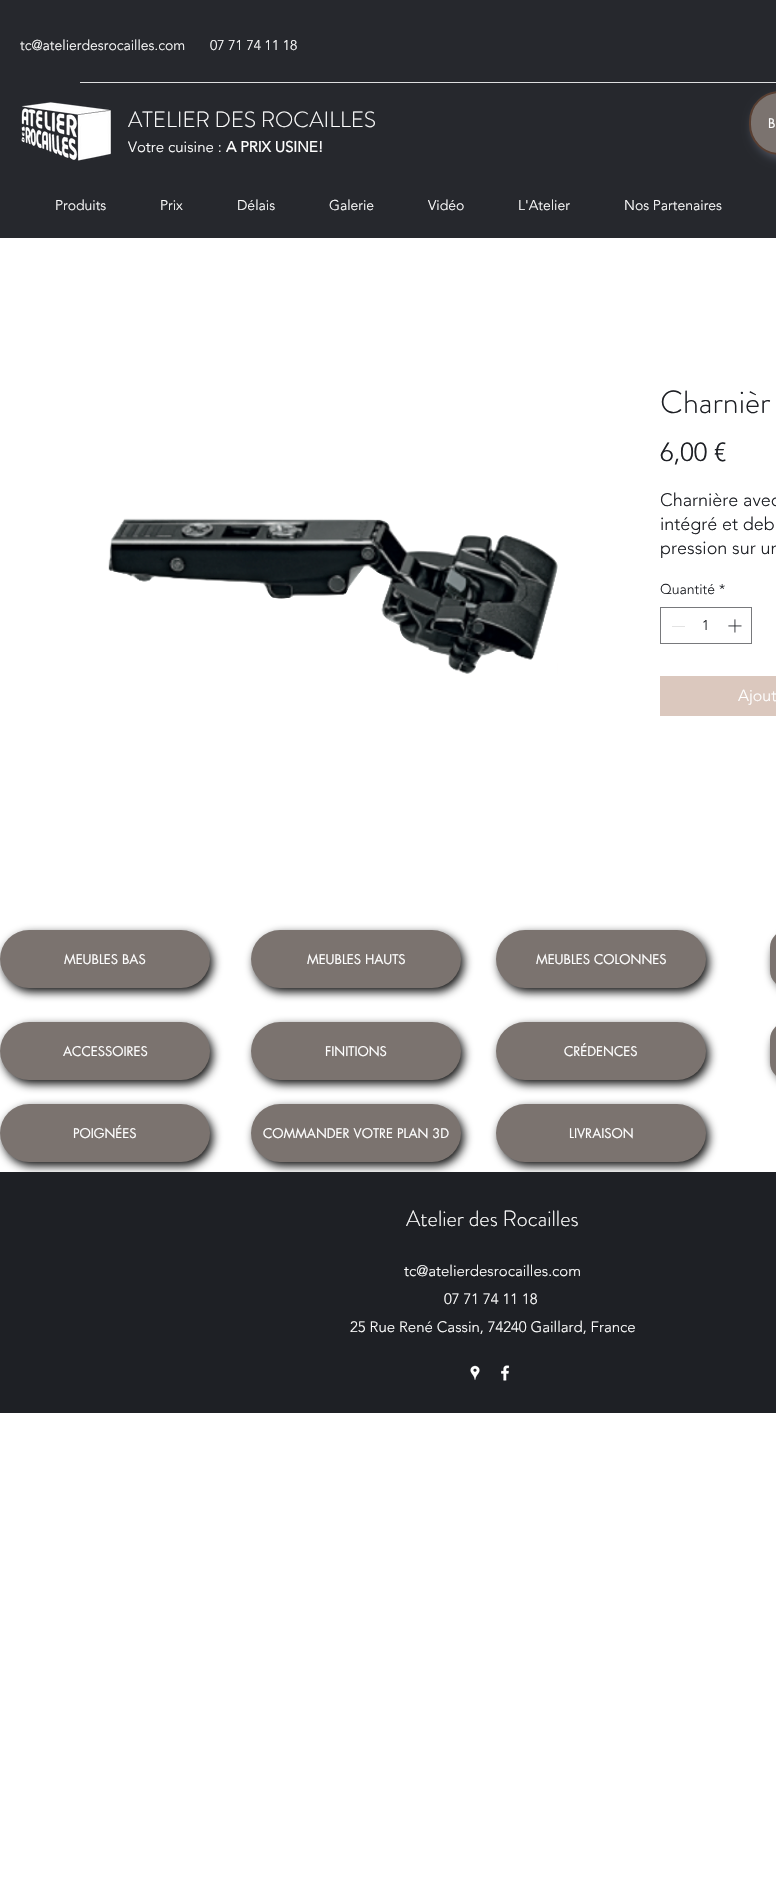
#include "include/core/SkBlurTypes.h"
#include "include/core/SkCanvas.h"
#include "include/core/SkData.h"
#include "include/core/SkFont.h"
#include "include/core/SkFontMgr.h"
#include "include/core/SkImage.h"
#include "include/core/SkMaskFilter.h"
#include "include/core/SkPaint.h"
#include "include/core/SkPathBuilder.h"
#include "include/core/SkTextBlob.h"
#include "include/effects/SkDashPathEffect.h"
#include "include/effects/SkGradientShader.h"
#include "include/utils/SkParsePath.h"

extern sk_sp<SkFontMgr> fontMgr;

void draw(SkCanvas* canvas) {
  SkPaint p;
  p.setAntiAlias(true);
  canvas->clear(SK_ColorWHITE);
  p.setColor(SkColorSetRGB(38, 40, 45));
  canvas->drawRect(SkRect::MakeLTRB(0, 0, 776, 238), p);
  p.setColor(SkColorSetRGB(222, 223, 224));
  canvas->drawRect(SkRect::MakeLTRB(80, 82, 776, 83), p);
  canvas->drawImageRect(SkImages::DeferredFromEncodedData(SkData::MakeFromFileName("images/1.png")), SkRect::MakeLTRB(21, 102, 111, 161), SkSamplingOptions());
  p.setColor(SkColorSetRGB(80, 85, 98));
  p.setMaskFilter(SkMaskFilter::MakeBlur(kNormal_SkBlurStyle, 5));
  canvas->drawRoundRect(SkRect::MakeLTRB(752, 95, 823, 159), 32, 32, p);
  p.setMaskFilter(nullptr);
  p.setColor(SkColorSetRGB(123, 115, 111));
  canvas->drawRoundRect(SkRect::MakeLTRB(750, 92, 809, 154), 31, 31, p);
  p.setStyle(SkPaint::kStroke_Style);
  p.setStrokeWidth(2);
  p.setColor(SkColorSetRGB(88, 62, 49));
  canvas->drawRoundRect(SkRect::MakeLTRB(750, 92, 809, 154), 31, 31, p);
  canvas->drawImageRect(SkImages::DeferredFromEncodedData(SkData::MakeFromFileName("images/2.png")), SkRect::MakeLTRB(108, 518, 558, 674), SkSamplingOptions());
  p.setStrokeWidth(1);
  p.setColor(SkColorSetRGB(120, 121, 124));
  canvas->drawRect(SkRect::MakeLTRB(660.5f, 607.5f, 751.5f, 643.5f), p);
  p.setStyle(SkPaint::kFill_Style);
  p.setColor(SkColorSetRGB(227, 227, 227));
  canvas->drawRect(SkRect::MakeLTRB(672, 626, 685, 627), p);
  canvas->drawImageRect(SkImages::DeferredFromEncodedData(SkData::MakeFromFileName("images/3.png")), SkRect::MakeLTRB(728, 619, 742, 633), SkSamplingOptions());
  p.setColor(SkColorSetRGB(219, 200, 190));
  canvas->drawRect(SkRect::MakeLTRB(660, 676, 776, 716), p);
  p.setColor(SkColorSetARGB(240, 0, 0, 0));
  p.setMaskFilter(SkMaskFilter::MakeBlur(kNormal_SkBlurStyle, 5));
  canvas->drawRoundRect(SkRect::MakeLTRB(3, 934, 213, 992), 29, 29, p);
  p.setMaskFilter(nullptr);
  p.setColor(SkColorSetRGB(123, 115, 111));
  canvas->drawRoundRect(SkRect::MakeLTRB(0, 930, 210, 988), 29, 29, p);
  p.setColor(SkColorSetARGB(240, 0, 0, 0));
  p.setMaskFilter(SkMaskFilter::MakeBlur(kNormal_SkBlurStyle, 5));
  canvas->drawRoundRect(SkRect::MakeLTRB(254, 934, 464, 992), 29, 29, p);
  p.setMaskFilter(nullptr);
  p.setColor(SkColorSetRGB(123, 115, 111));
  canvas->drawRoundRect(SkRect::MakeLTRB(251, 930, 461, 988), 29, 29, p);
  p.setColor(SkColorSetARGB(240, 0, 0, 0));
  p.setMaskFilter(SkMaskFilter::MakeBlur(kNormal_SkBlurStyle, 5));
  canvas->drawRoundRect(SkRect::MakeLTRB(499, 934, 709, 992), 29, 29, p);
  p.setMaskFilter(nullptr);
  p.setColor(SkColorSetRGB(123, 115, 111));
  canvas->drawRoundRect(SkRect::MakeLTRB(496, 930, 706, 988), 29, 29, p);
  p.setColor(SkColorSetARGB(240, 0, 0, 0));
  p.setMaskFilter(SkMaskFilter::MakeBlur(kNormal_SkBlurStyle, 5));
  canvas->drawRoundRect(SkRect::MakeLTRB(773, 934, 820, 992), 29, 29, p);
  p.setMaskFilter(nullptr);
  p.setColor(SkColorSetRGB(123, 115, 111));
  canvas->drawRoundRect(SkRect::MakeLTRB(770, 930, 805, 988), 29, 29, p);
  p.setColor(SkColorSetARGB(240, 0, 0, 0));
  p.setMaskFilter(SkMaskFilter::MakeBlur(kNormal_SkBlurStyle, 5));
  canvas->drawRoundRect(SkRect::MakeLTRB(3, 1026, 213, 1084), 29, 29, p);
  p.setMaskFilter(nullptr);
  p.setColor(SkColorSetRGB(123, 115, 111));
  canvas->drawRoundRect(SkRect::MakeLTRB(0, 1022, 210, 1080), 29, 29, p);
  p.setColor(SkColorSetARGB(240, 0, 0, 0));
  p.setMaskFilter(SkMaskFilter::MakeBlur(kNormal_SkBlurStyle, 5));
  canvas->drawRoundRect(SkRect::MakeLTRB(254, 1026, 464, 1084), 29, 29, p);
  p.setMaskFilter(nullptr);
  p.setColor(SkColorSetRGB(123, 115, 111));
  canvas->drawRoundRect(SkRect::MakeLTRB(251, 1022, 461, 1080), 29, 29, p);
  p.setColor(SkColorSetARGB(240, 0, 0, 0));
  p.setMaskFilter(SkMaskFilter::MakeBlur(kNormal_SkBlurStyle, 5));
  canvas->drawRoundRect(SkRect::MakeLTRB(499, 1026, 709, 1084), 29, 29, p);
  p.setMaskFilter(nullptr);
  p.setColor(SkColorSetRGB(123, 115, 111));
  canvas->drawRoundRect(SkRect::MakeLTRB(496, 1022, 706, 1080), 29, 29, p);
  p.setColor(SkColorSetARGB(240, 0, 0, 0));
  p.setMaskFilter(SkMaskFilter::MakeBlur(kNormal_SkBlurStyle, 5));
  canvas->drawRoundRect(SkRect::MakeLTRB(773, 1026, 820, 1084), 29, 29, p);
  p.setMaskFilter(nullptr);
  p.setColor(SkColorSetRGB(123, 115, 111));
  canvas->drawRoundRect(SkRect::MakeLTRB(770, 1022, 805, 1080), 29, 29, p);
  p.setColor(SkColorSetARGB(240, 0, 0, 0));
  p.setMaskFilter(SkMaskFilter::MakeBlur(kNormal_SkBlurStyle, 5));
  canvas->drawRoundRect(SkRect::MakeLTRB(3, 1108, 213, 1166), 29, 29, p);
  p.setMaskFilter(nullptr);
  p.setColor(SkColorSetRGB(123, 115, 111));
  canvas->drawRoundRect(SkRect::MakeLTRB(0, 1104, 210, 1162), 29, 29, p);
  p.setColor(SkColorSetARGB(240, 0, 0, 0));
  p.setMaskFilter(SkMaskFilter::MakeBlur(kNormal_SkBlurStyle, 5));
  canvas->drawRoundRect(SkRect::MakeLTRB(254, 1108, 464, 1166), 29, 29, p);
  p.setMaskFilter(nullptr);
  p.setColor(SkColorSetRGB(123, 115, 111));
  canvas->drawRoundRect(SkRect::MakeLTRB(251, 1104, 461, 1162), 29, 29, p);
  p.setColor(SkColorSetARGB(240, 0, 0, 0));
  p.setMaskFilter(SkMaskFilter::MakeBlur(kNormal_SkBlurStyle, 5));
  canvas->drawRoundRect(SkRect::MakeLTRB(499, 1108, 709, 1166), 29, 29, p);
  p.setMaskFilter(nullptr);
  p.setColor(SkColorSetRGB(123, 115, 111));
  canvas->drawRoundRect(SkRect::MakeLTRB(496, 1104, 706, 1162), 29, 29, p);
  p.setColor(SkColorSetRGB(30, 32, 37));
  canvas->drawRect(SkRect::MakeLTRB(0, 1172, 776, 1413), p);
  canvas->drawImageRect(SkImages::DeferredFromEncodedData(SkData::MakeFromFileName("images/4.png")), SkRect::MakeLTRB(470, 1365, 480, 1380), SkSamplingOptions());
  canvas->drawImageRect(SkImages::DeferredFromEncodedData(SkData::MakeFromFileName("images/5.png")), SkRect::MakeLTRB(501, 1365, 510, 1381), SkSamplingOptions());
  SkFont font1(fontMgr->matchFamilyStyle("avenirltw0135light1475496", SkFontStyle(300, SkFontStyle::kNormal_Width, SkFontStyle::kUpright_Slant)), 14);
  font1.setSubpixel(true);
  p.setColor(SK_ColorWHITE);
  canvas->drawString("tc@atelierdesrocailles.com", 20, 50, font1, p);
  canvas->drawString("07 71 74 11 18", 210, 50, font1, p);
  SkFont font2(fontMgr->matchFamilyStyle("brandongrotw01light", SkFontStyle(300, SkFontStyle::kNormal_Width, SkFontStyle::kUpright_Slant)), 22);
  font2.setSubpixel(true);
  canvas->drawString("ATELIER DES ROCAILLES", 128, 127, font2, p);
  SkFont font3(fontMgr->matchFamilyStyle("avenirltw0135light1475496", SkFontStyle(300, SkFontStyle::kNormal_Width, SkFontStyle::kUpright_Slant)), 15);
  font3.setSubpixel(true);
  canvas->drawString("Votre cuisine :", 128, 152, font3, p);
  SkFont font4(fontMgr->matchFamilyStyle("avenirltw0135light1475496", SkFontStyle::Bold()), 15);
  font4.setSubpixel(true);
  canvas->drawString("A PRIX USINE!", 226, 152, font4, p);
  SkFont font5(fontMgr->matchFamilyStyle("futura", SkFontStyle::Normal()), 13);
  font5.setSubpixel(true);
  canvas->drawString("B", 768, 128, font5, p);
  canvas->drawString("Produits", 55, 210, font1, p);
  canvas->drawString("Prix", 160, 210, font1, p);
  canvas->drawString("Délais", 237, 210, font1, p);
  canvas->drawString("Galerie", 329, 210, font1, p);
  canvas->drawString("Vidéo", 428, 210, font1, p);
  canvas->drawString("L'Atelier", 518, 210, font1, p);
  canvas->drawString("Nos Partenaires", 624, 210, font1, p);
  SkFont font6(fontMgr->matchFamilyStyle("brandongrotw01light", SkFontStyle(300, SkFontStyle::kNormal_Width, SkFontStyle::kUpright_Slant)), 32);
  font6.setSubpixel(true);
  p.setColor(SkColorSetRGB(30, 32, 37));
  canvas->drawString("Charnièr", 660, 413, font6, p);
  SkFont font7(fontMgr->matchFamilyStyle("avenirltw0135light1475496", SkFontStyle(300, SkFontStyle::kNormal_Width, SkFontStyle::kUpright_Slant)), 26);
  font7.setSubpixel(true);
  canvas->drawString("6,00 €", 660, 461, font7, p);
  SkFont font8(fontMgr->matchFamilyStyle("avenirltw0135light1475496", SkFontStyle(300, SkFontStyle::kNormal_Width, SkFontStyle::kUpright_Slant)), 18);
  font8.setSubpixel(true);
  canvas->drawString("Charnière avec", 660, 506, font8, p);
  canvas->drawString("intégré et deb", 660, 530, font8, p);
  canvas->drawString("pression sur un", 660, 554, font8, p);
  canvas->drawString("Quantité", 660, 594, font1, p);
  canvas->drawString("*", 719, 594, font1, p);
  canvas->drawString("1", 702, 630, font1, p);
  SkFont font9(fontMgr->matchFamilyStyle("avenirltw0135light1475496", SkFontStyle(300, SkFontStyle::kNormal_Width, SkFontStyle::kUpright_Slant)), 16);
  font9.setSubpixel(true);
  p.setColor(SK_ColorWHITE);
  canvas->drawString("Ajout", 738, 701, font9, p);
  canvas->drawString("MEUBLES BAS", 64, 964, font5, p);
  canvas->drawString("MEUBLES HAUTS", 307, 964, font5, p);
  canvas->drawString("MEUBLES COLONNES", 536, 964, font5, p);
  canvas->drawString("ACCESSOIRES", 63, 1056, font5, p);
  canvas->drawString("FINITIONS", 325, 1056, font5, p);
  canvas->drawString("CRÉDENCES", 564, 1056, font5, p);
  canvas->drawString("POIGNÉES", 73, 1138, font5, p);
  canvas->drawString("COMMANDER VOTRE PLAN 3D", 263, 1138, font5, p);
  canvas->drawString("LIVRAISON", 569, 1138, font5, p);
  canvas->drawString("Atelier des Rocailles", 406, 1226, font2, p);
  canvas->drawString("tc@atelierdesrocailles.com", 404, 1276, font3, p);
  canvas->drawString("07 71 74 11 18", 444, 1304, font3, p);
  canvas->drawString("25 Rue René Cassin, 74240 Gaillard, France", 350, 1332, font3, p);
}
